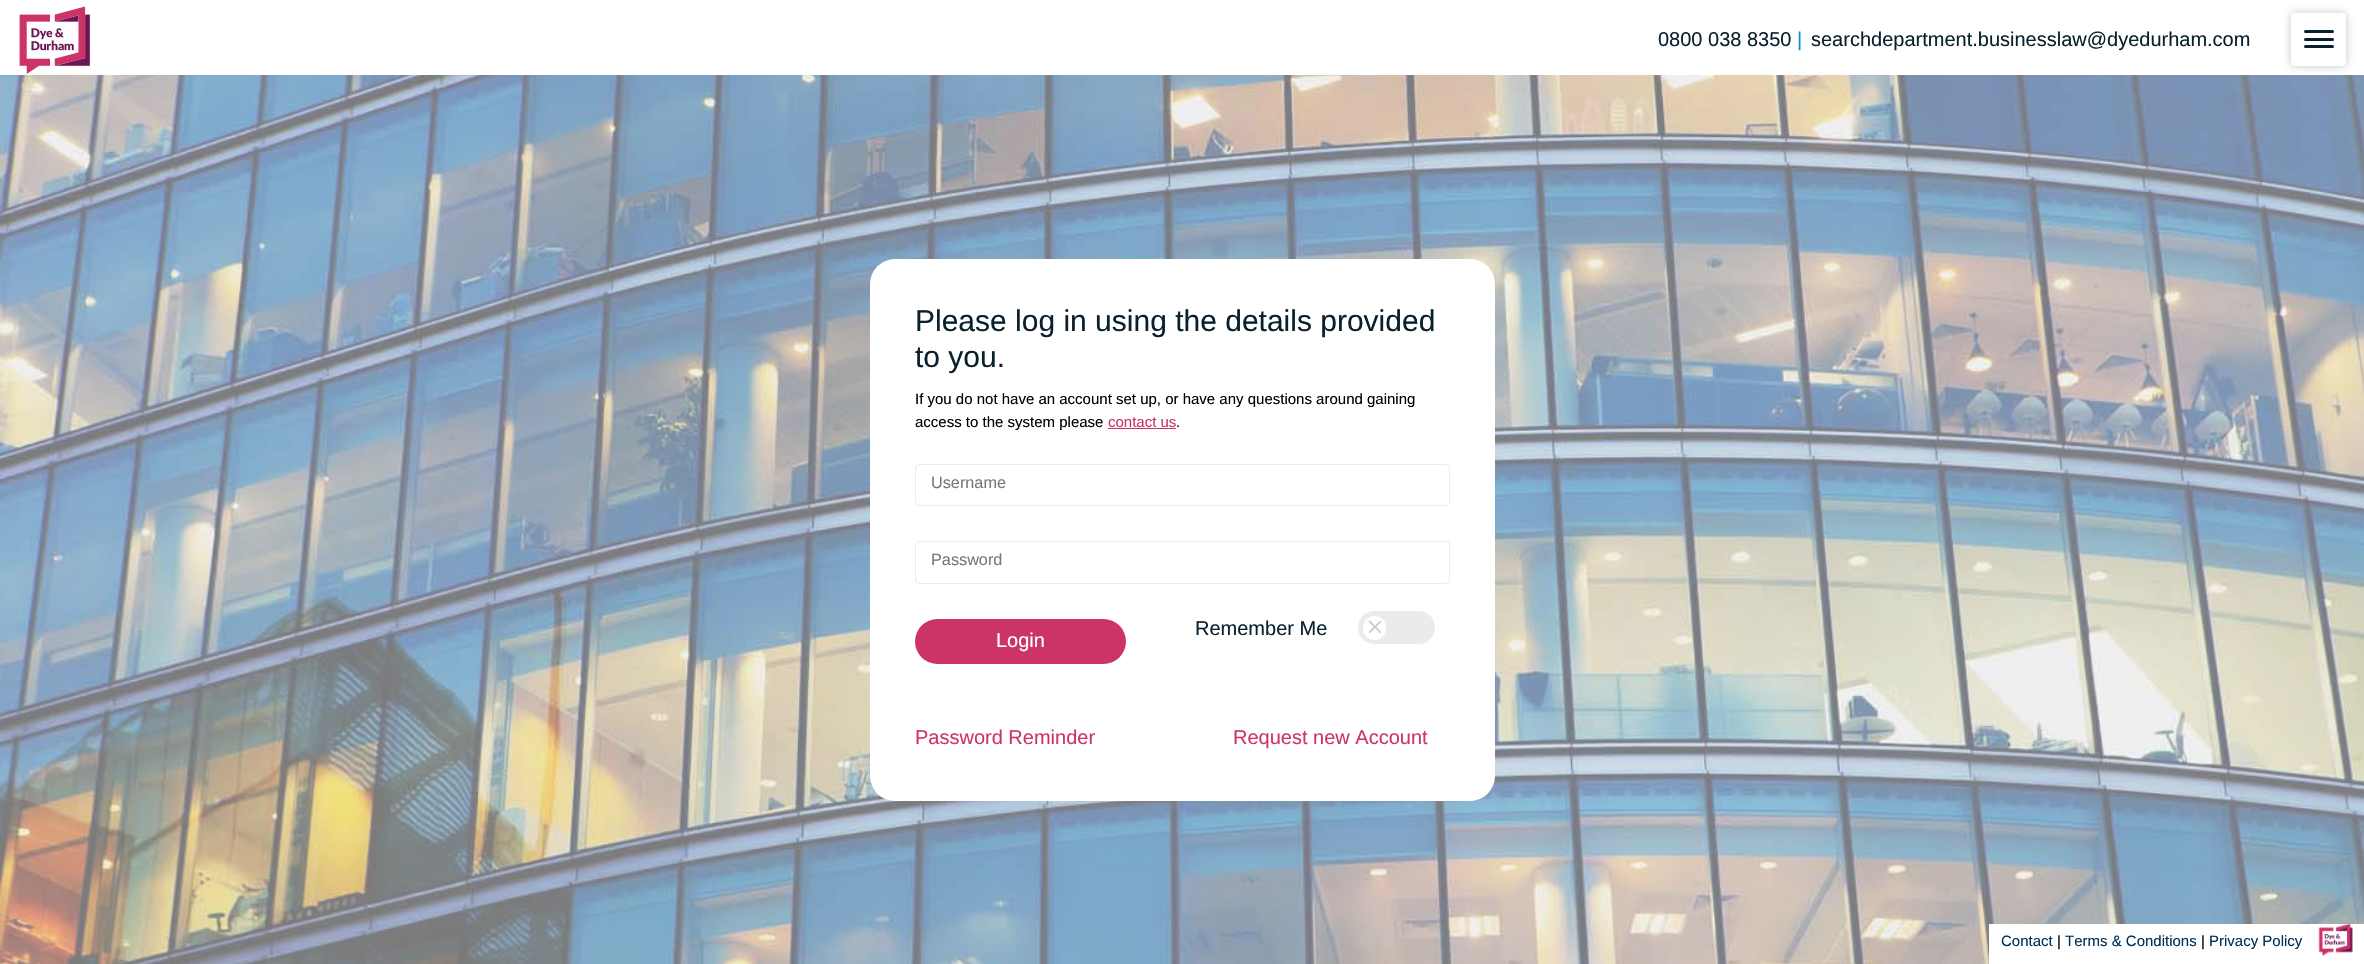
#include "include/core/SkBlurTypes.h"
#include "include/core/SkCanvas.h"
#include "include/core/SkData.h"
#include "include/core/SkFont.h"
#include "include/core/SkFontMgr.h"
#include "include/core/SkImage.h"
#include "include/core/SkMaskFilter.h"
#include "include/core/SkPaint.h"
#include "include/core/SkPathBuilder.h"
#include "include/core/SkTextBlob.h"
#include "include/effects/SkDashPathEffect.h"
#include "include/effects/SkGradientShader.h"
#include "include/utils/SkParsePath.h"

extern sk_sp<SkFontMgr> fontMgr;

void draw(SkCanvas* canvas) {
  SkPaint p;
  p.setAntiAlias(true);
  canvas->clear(SkColorSetRGB(245, 245, 245));
  p.setColor(SK_ColorWHITE);
  canvas->drawRect(SkRect::MakeLTRB(0, 0, 2364, 75), p);
  canvas->drawImageRect(SkImages::DeferredFromEncodedData(SkData::MakeFromFileName("images/1.png")), SkRect::MakeLTRB(19, 6, 90, 74), SkSamplingOptions());
  canvas->drawImageRect(SkImages::DeferredFromEncodedData(SkData::MakeFromFileName("images/2.png")), SkRect::MakeLTRB(0, 75, 2364, 964), SkSamplingOptions());
  p.setColor(SkColorSetARGB(77, 51, 63, 72));
  p.setMaskFilter(SkMaskFilter::MakeBlur(kNormal_SkBlurStyle, 4.5f));
  canvas->drawRoundRect(SkRect::MakeLTRB(2291, 13, 2346, 66), 4, 4, p);
  p.setMaskFilter(nullptr);
  p.setColor(SK_ColorWHITE);
  canvas->drawRoundRect(SkRect::MakeLTRB(2291, 13, 2346, 66), 4, 4, p);
  p.setColor(SkColorSetRGB(9, 32, 45));
  canvas->drawRoundRect(SkRect::MakeLTRB(2304, 30, 2334, 33), 1.5f, 1.5f, p);
  canvas->drawRoundRect(SkRect::MakeLTRB(2304, 38, 2334, 41), 1.5f, 1.5f, p);
  canvas->drawRoundRect(SkRect::MakeLTRB(2304, 45, 2334, 48), 1.5f, 1.5f, p);
  p.setColor(SK_ColorWHITE);
  canvas->drawRoundRect(SkRect::MakeLTRB(870, 259, 1495, 801), 25, 25, p);
  p.setColor(SkColorSetRGB(204, 51, 105));
  canvas->drawRect(SkRect::MakeLTRB(1108, 428, 1176, 429), p);
  p.setStyle(SkPaint::kStroke_Style);
  p.setStrokeWidth(1);
  p.setColor(SkColorSetRGB(235, 235, 235));
  canvas->drawRoundRect(SkRect::MakeLTRB(915.5f, 464.5f, 1449.5f, 505.5f), 3.5f, 3.5f, p);
  canvas->drawRoundRect(SkRect::MakeLTRB(915.5f, 541.5f, 1449.5f, 583.5f), 3.5f, 3.5f, p);
  p.setStyle(SkPaint::kFill_Style);
  canvas->drawRoundRect(SkRect::MakeLTRB(1358, 611, 1435, 644), 16.5f, 16.5f, p);
  p.setColor(SK_ColorWHITE);
  canvas->drawRoundRect(SkRect::MakeLTRB(1363, 616, 1386, 640), 11.5f, 11.5f, p);
  canvas->drawImageRect(SkImages::DeferredFromEncodedData(SkData::MakeFromFileName("images/3.png")), SkRect::MakeLTRB(1368, 620, 1382, 634), SkSamplingOptions());
  p.setColor(SkColorSetRGB(204, 51, 105));
  canvas->drawRoundRect(SkRect::MakeLTRB(915, 619, 1126, 664), 22.5f, 22.5f, p);
  p.setColor(SK_ColorWHITE);
  canvas->drawRect(SkRect::MakeLTRB(1989, 924, 2364, 964), p);
  canvas->drawImageRect(SkImages::DeferredFromEncodedData(SkData::MakeFromFileName("images/4.png")), SkRect::MakeLTRB(2318, 923, 2353, 957), SkSamplingOptions());
  SkFont font1(fontMgr->matchFamilyStyle("Liberation Sans", SkFontStyle::Normal()), 20);
  font1.setSubpixel(true);
  p.setColor(SkColorSetRGB(9, 32, 45));
  canvas->drawString("0800 038 8350", 1658, 46, font1, p);
  p.setColor(SkColorSetRGB(0, 143, 218));
  canvas->drawString("|", 1797, 46, font1, p);
  p.setColor(SkColorSetRGB(9, 32, 45));
  canvas->drawString("searchdepartment.businesslaw@dyedurham.com", 1811, 46, font1, p);
  SkFont font2(fontMgr->matchFamilyStyle("Liberation Sans", SkFontStyle::Normal()), 30);
  font2.setSubpixel(true);
  canvas->drawString("Please log in using the details provided", 915, 331, font2, p);
  canvas->drawString("to you.", 915, 367, font2, p);
  SkFont font3(fontMgr->matchFamilyStyle("Liberation Sans", SkFontStyle::Normal()), 15);
  font3.setSubpixel(true);
  p.setColor(SK_ColorBLACK);
  canvas->drawString("If you do not have an account set up, or have any questions around gaining", 915, 404, font3, p);
  canvas->drawString("access to the system please", 915, 427, font3, p);
  p.setColor(SkColorSetRGB(204, 51, 105));
  canvas->drawString("contact us", 1108, 427, font3, p);
  p.setColor(SK_ColorBLACK);
  canvas->drawString(".", 1176, 427, font3, p);
  SkFont font4(fontMgr->matchFamilyStyle("Liberation Sans", SkFontStyle::Normal()), 16.25f);
  font4.setSubpixel(true);
  p.setColor(SkColorSetRGB(119, 119, 119));
  canvas->drawString("Username", 931, 488, font4, p);
  canvas->drawString("Password", 931, 565, font4, p);
  p.setColor(SkColorSetRGB(9, 32, 45));
  canvas->drawString("Remember Me", 1195, 635, font1, p);
  p.setColor(SK_ColorWHITE);
  canvas->drawString("Login", 996, 647, font1, p);
  p.setColor(SkColorSetRGB(204, 51, 105));
  canvas->drawString("Password Reminder", 915, 744, font1, p);
  canvas->drawString("Request new Account", 1233, 744, font1, p);
  p.setColor(SkColorSetRGB(0, 47, 86));
  canvas->drawString("Contact", 2001, 946, font3, p);
  p.setColor(SK_ColorBLACK);
  canvas->drawString("|", 2057, 946, font3, p);
  p.setColor(SkColorSetRGB(0, 47, 86));
  canvas->drawString("Terms & Conditions", 2065, 946, font3, p);
  p.setColor(SK_ColorBLACK);
  canvas->drawString("|", 2201, 946, font3, p);
  p.setColor(SkColorSetRGB(0, 47, 86));
  canvas->drawString("Privacy Policy", 2209, 946, font3, p);
}
